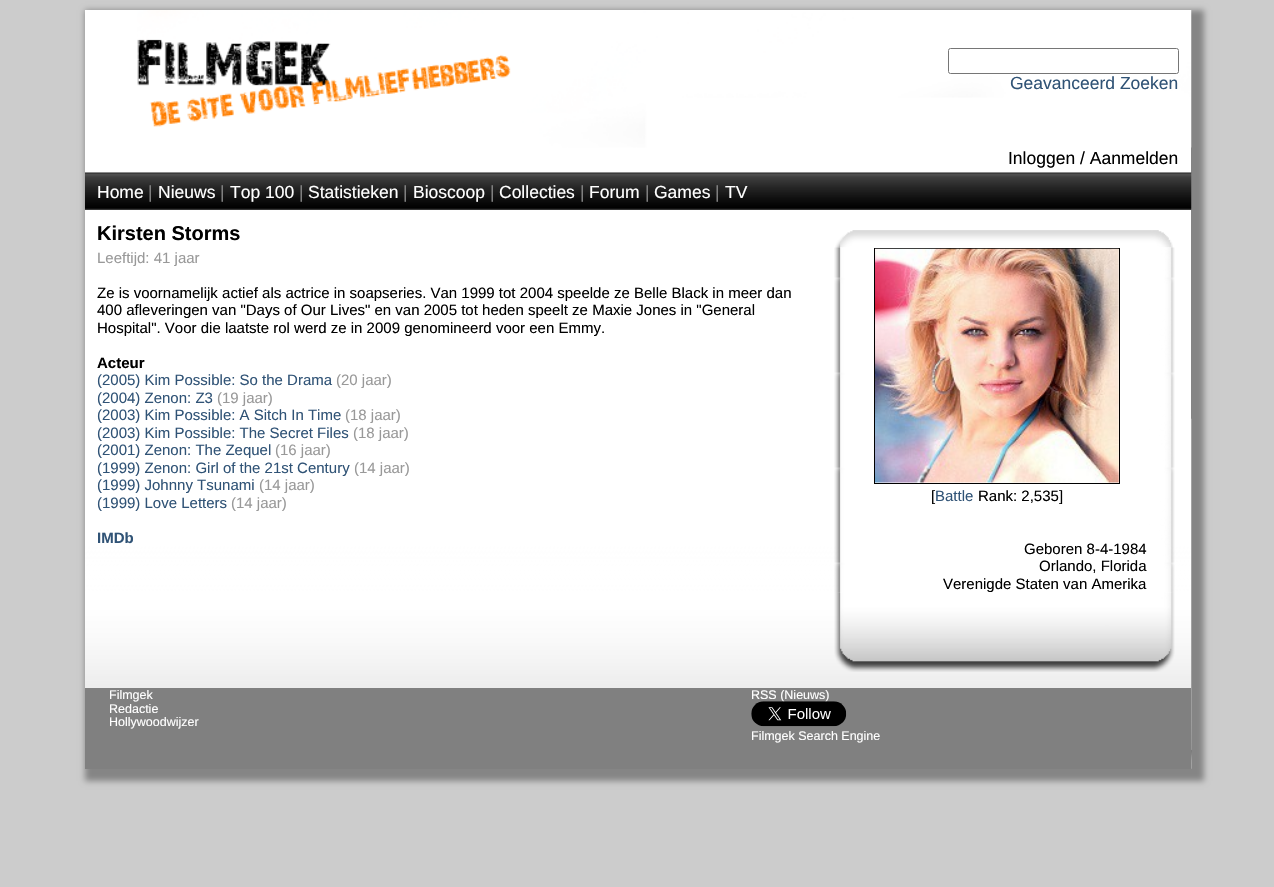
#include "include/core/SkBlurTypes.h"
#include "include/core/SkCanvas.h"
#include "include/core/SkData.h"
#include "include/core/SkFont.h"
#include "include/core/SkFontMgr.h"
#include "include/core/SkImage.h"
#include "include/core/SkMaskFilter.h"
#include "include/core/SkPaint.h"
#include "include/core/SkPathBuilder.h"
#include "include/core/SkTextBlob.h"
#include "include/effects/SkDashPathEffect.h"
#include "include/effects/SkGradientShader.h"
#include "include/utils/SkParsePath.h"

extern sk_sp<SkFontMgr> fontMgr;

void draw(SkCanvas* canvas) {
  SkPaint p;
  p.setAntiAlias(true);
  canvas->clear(SkColorSetRGB(204, 204, 204));
  p.setColor(SkColorSetRGB(133, 133, 133));
  p.setMaskFilter(SkMaskFilter::MakeBlur(kNormal_SkBlurStyle, 3));
  canvas->drawRect(SkRect::MakeLTRB(85, 10, 1204, 781), p);
  p.setMaskFilter(nullptr);
  p.setColor(SK_ColorWHITE);
  canvas->drawRect(SkRect::MakeLTRB(85, 10, 1191, 419), p);
  canvas->drawImageRect(SkImages::DeferredFromEncodedData(SkData::MakeFromFileName("images/1.png")), SkRect::MakeLTRB(85, 418, 1192, 769), SkSamplingOptions());
  canvas->drawImageRect(SkImages::DeferredFromEncodedData(SkData::MakeFromFileName("images/2.png")), SkRect::MakeLTRB(137, 10, 1192, 148), SkSamplingOptions());
  p.setStyle(SkPaint::kStroke_Style);
  p.setStrokeWidth(1);
  p.setColor(SkColorSetRGB(118, 118, 118));
  canvas->drawRoundRect(SkRect::MakeLTRB(948.5f, 48.5f, 1178.5f, 73.5f), 2, 2, p);
  canvas->drawImageRect(SkImages::DeferredFromEncodedData(SkData::MakeFromFileName("images/3.png")), SkRect::MakeLTRB(85, 172, 1192, 210), SkSamplingOptions());
  canvas->drawImageRect(SkImages::DeferredFromEncodedData(SkData::MakeFromFileName("images/4.png")), SkRect::MakeLTRB(835, 230, 1173, 248), SkSamplingOptions());
  canvas->drawImageRect(SkImages::DeferredFromEncodedData(SkData::MakeFromFileName("images/5.png")), SkRect::MakeLTRB(834, 247, 1175, 593), SkSamplingOptions());
  p.setColor(SK_ColorBLACK);
  canvas->drawRect(SkRect::MakeLTRB(874.5f, 248.5f, 1119.5f, 483.5f), p);
  canvas->drawImageRect(SkImages::DeferredFromEncodedData(SkData::MakeFromFileName("images/6.png")), SkRect::MakeLTRB(875, 248, 1119, 483), SkSamplingOptions());
  canvas->drawImageRect(SkImages::DeferredFromEncodedData(SkData::MakeFromFileName("images/7.png")), SkRect::MakeLTRB(834, 592, 1175, 672), SkSamplingOptions());
  p.setStyle(SkPaint::kFill_Style);
  p.setColor(SkColorSetRGB(128, 128, 128));
  canvas->drawRect(SkRect::MakeLTRB(85, 688, 1191, 769), p);
  SkFont font1(fontMgr->matchFamilyStyle("Liberation Sans", SkFontStyle::Normal()), 17.5f);
  font1.setSubpixel(true);
  p.setColor(SkColorSetRGB(48, 83, 118));
  canvas->drawString("Geavanceerd Zoeken", 1010, 89, font1, p);
  p.setColor(SK_ColorBLACK);
  canvas->drawString("Inloggen / Aanmelden", 1008, 164, font1, p);
  p.setColor(SK_ColorWHITE);
  canvas->drawString("Home", 97, 198, font1, p);
  p.setColor(SkColorSetRGB(128, 128, 128));
  canvas->drawString("|", 148, 198, font1, p);
  p.setColor(SK_ColorWHITE);
  canvas->drawString("Nieuws", 158, 198, font1, p);
  p.setColor(SkColorSetRGB(128, 128, 128));
  canvas->drawString("|", 220, 198, font1, p);
  p.setColor(SK_ColorWHITE);
  canvas->drawString("Top 100", 230, 198, font1, p);
  p.setColor(SkColorSetRGB(128, 128, 128));
  canvas->drawString("|", 299, 198, font1, p);
  p.setColor(SK_ColorWHITE);
  canvas->drawString("Statistieken", 308, 198, font1, p);
  p.setColor(SkColorSetRGB(128, 128, 128));
  canvas->drawString("|", 403, 198, font1, p);
  p.setColor(SK_ColorWHITE);
  canvas->drawString("Bioscoop", 413, 198, font1, p);
  p.setColor(SkColorSetRGB(128, 128, 128));
  canvas->drawString("|", 490, 198, font1, p);
  p.setColor(SK_ColorWHITE);
  canvas->drawString("Collecties", 499, 198, font1, p);
  p.setColor(SkColorSetRGB(128, 128, 128));
  canvas->drawString("|", 580, 198, font1, p);
  p.setColor(SK_ColorWHITE);
  canvas->drawString("Forum", 589, 198, font1, p);
  p.setColor(SkColorSetRGB(128, 128, 128));
  canvas->drawString("|", 645, 198, font1, p);
  p.setColor(SK_ColorWHITE);
  canvas->drawString("Games", 654, 198, font1, p);
  p.setColor(SkColorSetRGB(128, 128, 128));
  canvas->drawString("|", 715, 198, font1, p);
  p.setColor(SK_ColorWHITE);
  canvas->drawString("TV", 725, 198, font1, p);
  SkFont font2(fontMgr->matchFamilyStyle("Liberation Sans", SkFontStyle::Bold()), 20);
  font2.setSubpixel(true);
  p.setColor(SK_ColorBLACK);
  canvas->drawString("Kirsten Storms", 97, 240, font2, p);
  SkFont font3(fontMgr->matchFamilyStyle("Liberation Sans", SkFontStyle::Normal()), 15);
  font3.setSubpixel(true);
  p.setColor(SkColorSetRGB(153, 153, 153));
  canvas->drawString("Leeftijd: 41 jaar", 97, 263, font3, p);
  p.setColor(SK_ColorBLACK);
  canvas->drawString("Ze is voornamelijk actief als actrice in soapseries. Van 1999 tot 2004 speelde ze Belle Black in meer dan", 97, 298, font3, p);
  canvas->drawString("400 afleveringen van \"Days of Our Lives\" en van 2005 tot heden speelt ze Maxie Jones in \"General", 97, 315, font3, p);
  canvas->drawString("Hospital\". Voor die laatste rol werd ze in 2009 genomineerd voor een Emmy.", 97, 333, font3, p);
  SkFont font4(fontMgr->matchFamilyStyle("Liberation Sans", SkFontStyle::Bold()), 15);
  font4.setSubpixel(true);
  canvas->drawString("Acteur", 97, 368, font4, p);
  p.setColor(SkColorSetRGB(48, 83, 118));
  canvas->drawString("(2005) Kim Possible: So the Drama", 97, 385, font3, p);
  p.setColor(SkColorSetRGB(153, 153, 153));
  canvas->drawString("(20 jaar)", 336, 385, font3, p);
  p.setColor(SkColorSetRGB(48, 83, 118));
  canvas->drawString("(2004) Zenon: Z3", 97, 403, font3, p);
  p.setColor(SkColorSetRGB(153, 153, 153));
  canvas->drawString("(19 jaar)", 217, 403, font3, p);
  p.setColor(SkColorSetRGB(48, 83, 118));
  canvas->drawString("(2003) Kim Possible: A Sitch In Time", 97, 420, font3, p);
  p.setColor(SkColorSetRGB(153, 153, 153));
  canvas->drawString("(18 jaar)", 345, 420, font3, p);
  p.setColor(SkColorSetRGB(48, 83, 118));
  canvas->drawString("(2003) Kim Possible: The Secret Files", 97, 438, font3, p);
  p.setColor(SkColorSetRGB(153, 153, 153));
  canvas->drawString("(18 jaar)", 353, 438, font3, p);
  p.setColor(SkColorSetRGB(48, 83, 118));
  canvas->drawString("(2001) Zenon: The Zequel", 97, 455, font3, p);
  p.setColor(SkColorSetRGB(153, 153, 153));
  canvas->drawString("(16 jaar)", 275, 455, font3, p);
  p.setColor(SkColorSetRGB(48, 83, 118));
  canvas->drawString("(1999) Zenon: Girl of the 21st Century", 97, 473, font3, p);
  p.setColor(SkColorSetRGB(153, 153, 153));
  canvas->drawString("(14 jaar)", 354, 473, font3, p);
  p.setColor(SkColorSetRGB(48, 83, 118));
  canvas->drawString("(1999) Johnny Tsunami", 97, 490, font3, p);
  p.setColor(SkColorSetRGB(153, 153, 153));
  canvas->drawString("(14 jaar)", 259, 490, font3, p);
  p.setColor(SkColorSetRGB(48, 83, 118));
  canvas->drawString("(1999) Love Letters", 97, 508, font3, p);
  p.setColor(SkColorSetRGB(153, 153, 153));
  canvas->drawString("(14 jaar)", 231, 508, font3, p);
  p.setColor(SkColorSetRGB(48, 83, 118));
  canvas->drawString("IMDb", 97, 543, font4, p);
  p.setColor(SK_ColorBLACK);
  canvas->drawString("[", 931, 501, font3, p);
  p.setColor(SkColorSetRGB(48, 83, 118));
  canvas->drawString("Battle", 935, 501, font3, p);
  p.setColor(SK_ColorBLACK);
  canvas->drawString("Rank: 2,535]", 978, 501, font3, p);
  canvas->drawString("Geboren 8-4-1984", 1024, 554, font3, p);
  canvas->drawString("Orlando, Florida", 1039, 571, font3, p);
  canvas->drawString("Verenigde Staten van Amerika", 943, 589, font3, p);
  SkFont font5(fontMgr->matchFamilyStyle("Liberation Sans", SkFontStyle::Normal()), 12.5f);
  font5.setSubpixel(true);
  p.setColor(SK_ColorWHITE);
  canvas->drawString("Filmgek", 109, 699, font5, p);
  canvas->drawString("Redactie", 109, 713, font5, p);
  canvas->drawString("Hollywoodwijzer", 109, 726, font5, p);
  canvas->drawString("RSS (Nieuws)", 751, 699, font5, p);
  canvas->drawImageRect(SkImages::DeferredFromEncodedData(SkData::MakeFromFileName("images/8.png")), SkRect::MakeLTRB(751, 701, 847, 727), SkSamplingOptions());
  canvas->drawString("Filmgek Search Engine", 751, 740, font5, p);
}
